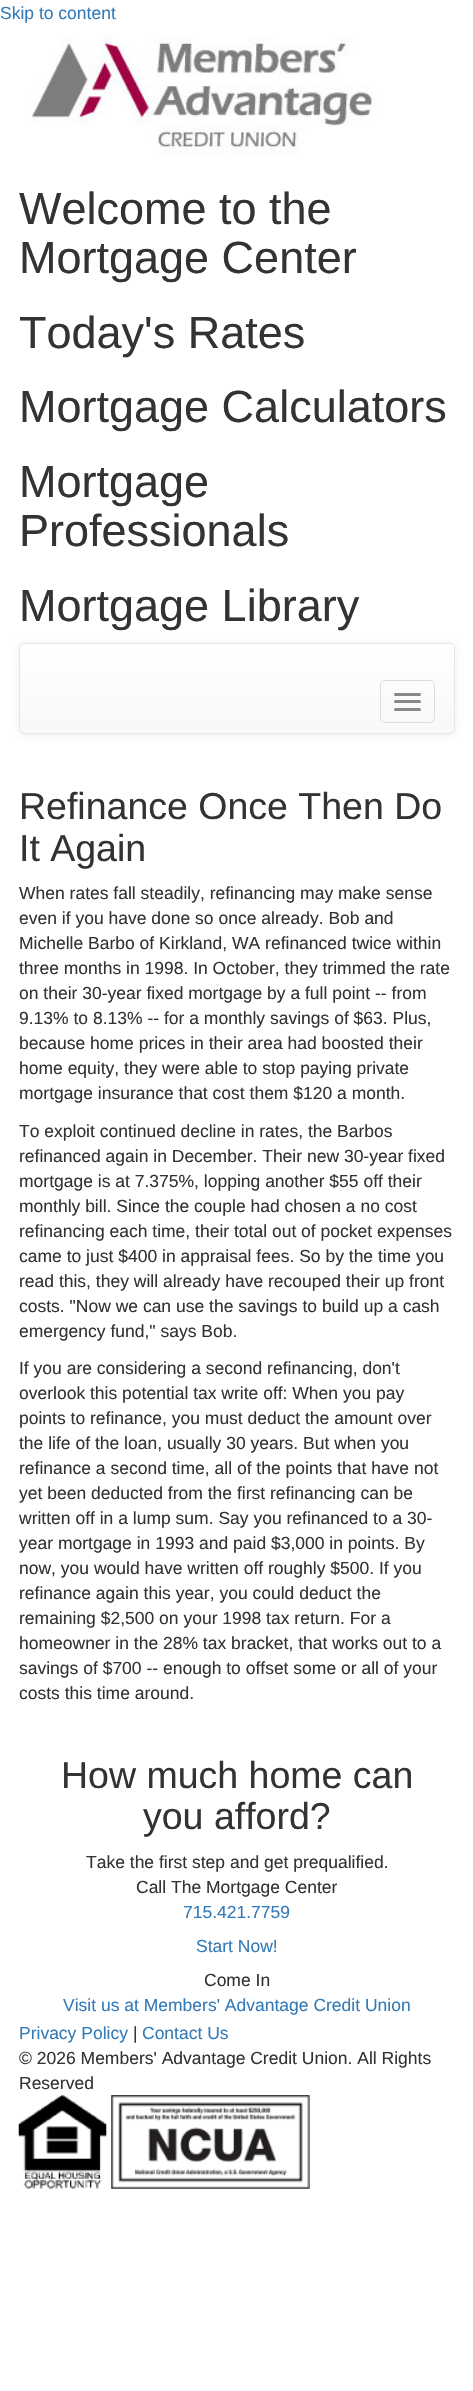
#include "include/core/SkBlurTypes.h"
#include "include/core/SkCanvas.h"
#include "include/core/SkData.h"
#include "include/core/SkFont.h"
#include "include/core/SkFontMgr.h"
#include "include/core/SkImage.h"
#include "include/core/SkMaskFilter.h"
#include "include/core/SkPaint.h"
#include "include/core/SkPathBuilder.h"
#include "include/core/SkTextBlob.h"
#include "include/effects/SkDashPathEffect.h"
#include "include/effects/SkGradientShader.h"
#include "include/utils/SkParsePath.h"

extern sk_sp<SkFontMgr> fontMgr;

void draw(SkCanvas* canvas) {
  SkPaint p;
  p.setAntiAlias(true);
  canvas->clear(SK_ColorWHITE);
  canvas->drawImageRect(SkImages::DeferredFromEncodedData(SkData::MakeFromFileName("images/1.png")), SkRect::MakeLTRB(30, 35, 377, 155), SkSamplingOptions());
  p.setColor(SkColorSetARGB(18, 0, 0, 0));
  p.setMaskFilter(SkMaskFilter::MakeBlur(kNormal_SkBlurStyle, 3));
  canvas->drawRoundRect(SkRect::MakeLTRB(19, 644, 455, 735), 5, 5, p);
  p.setMaskFilter(nullptr);
  canvas->save();
  canvas->clipPath(SkPathBuilder().moveTo(24, 643).lineTo(450, 643).cubicTo(453, 643, 455, 645, 455, 648).lineTo(455, 729).cubicTo(455, 732, 453, 734, 450, 734).lineTo(24, 734).cubicTo(21, 734, 19, 732, 19, 729).lineTo(19, 648).cubicTo(19, 645, 21, 643, 24, 643).close().detach(), true);
  {
    const SkColor colors[] = {SK_ColorWHITE, SkColorSetRGB(248, 248, 248)};
    const float stops[] = {0, 1};
    const SkPoint ends[] = {{237, 644}, {237, 733}};
    p.setShader(SkGradientShader::MakeLinear(ends, colors, stops, 2, SkTileMode::kClamp));
    p.setAlpha(255);
  }
  canvas->drawRect(SkRect::MakeLTRB(19, 644, 455, 733), p);
  canvas->restore();
  p.setStyle(SkPaint::kStroke_Style);
  p.setStrokeWidth(1);
  p.setShader(nullptr);
  p.setColor(SkColorSetRGB(231, 231, 231));
  canvas->drawRoundRect(SkRect::MakeLTRB(19.5f, 643.5f, 454.5f, 733.5f), 4.5f, 4.5f, p);
  p.setColor(SkColorSetRGB(221, 221, 221));
  canvas->drawRoundRect(SkRect::MakeLTRB(380.5f, 680.5f, 434.5f, 722.5f), 4.5f, 4.5f, p);
  p.setStyle(SkPaint::kFill_Style);
  p.setColor(SkColorSetRGB(136, 136, 136));
  canvas->drawRoundRect(SkRect::MakeLTRB(394, 693, 421, 696), 1.5f, 1.5f, p);
  canvas->drawRoundRect(SkRect::MakeLTRB(394, 700, 421, 703), 1.5f, 1.5f, p);
  canvas->drawRoundRect(SkRect::MakeLTRB(394, 708, 421, 711), 1.5f, 1.5f, p);
  canvas->drawImageRect(SkImages::DeferredFromEncodedData(SkData::MakeFromFileName("images/2.png")), SkRect::MakeLTRB(18, 2095, 107, 2189), SkSamplingOptions());
  canvas->drawImageRect(SkImages::DeferredFromEncodedData(SkData::MakeFromFileName("images/3.png")), SkRect::MakeLTRB(111, 2095, 310, 2189), SkSamplingOptions());
  SkFont font1(fontMgr->matchFamilyStyle("Liberation Sans", SkFontStyle::Normal()), 17.5f);
  font1.setSubpixel(true);
  p.setColor(SkColorSetRGB(51, 122, 183));
  canvas->drawString("Skip to content", 0, 19, font1, p);
  SkFont font2(fontMgr->matchFamilyStyle("Liberation Sans", SkFontStyle::Normal()), 45);
  font2.setSubpixel(true);
  p.setColor(SkColorSetRGB(51, 51, 51));
  canvas->drawString("Welcome to the", 19, 224, font2, p);
  canvas->drawString("Mortgage Center", 19, 273, font2, p);
  canvas->drawString("Today's Rates", 19, 348, font2, p);
  canvas->drawString("Mortgage Calculators", 19, 422, font2, p);
  canvas->drawString("Mortgage", 19, 497, font2, p);
  canvas->drawString("Professionals", 19, 546, font2, p);
  canvas->drawString("Mortgage Library", 19, 621, font2, p);
  SkFont font3(fontMgr->matchFamilyStyle("Liberation Sans", SkFontStyle::Normal()), 37.5f);
  font3.setSubpixel(true);
  canvas->drawString("Refinance Once Then Do", 19, 819, font3, p);
  canvas->drawString("It Again", 19, 861, font3, p);
  canvas->drawString("When rates fall steadily, refinancing may make sense", 19, 899, font1, p);
  canvas->drawString("even if you have done so once already. Bob and", 19, 924, font1, p);
  canvas->drawString("Michelle Barbo of Kirkland, WA refinanced twice within", 19, 949, font1, p);
  canvas->drawString("three months in 1998. In October, they trimmed the rate", 19, 974, font1, p);
  canvas->drawString("on their 30-year fixed mortgage by a full point -- from", 19, 999, font1, p);
  canvas->drawString("9.13% to 8.13% -- for a monthly savings of $63. Plus,", 19, 1024, font1, p);
  canvas->drawString("because home prices in their area had boosted their", 19, 1049, font1, p);
  canvas->drawString("home equity, they were able to stop paying private", 19, 1074, font1, p);
  canvas->drawString("mortgage insurance that cost them $120 a month.", 19, 1099, font1, p);
  canvas->drawString("To exploit continued decline in rates, the Barbos", 19, 1137, font1, p);
  canvas->drawString("refinanced again in December. Their new 30-year fixed", 19, 1162, font1, p);
  canvas->drawString("mortgage is at 7.375%, lopping another $55 off their", 19, 1187, font1, p);
  canvas->drawString("monthly bill. Since the couple had chosen a no cost", 19, 1212, font1, p);
  canvas->drawString("refinancing each time, their total out of pocket expenses", 19, 1237, font1, p);
  canvas->drawString("came to just $400 in appraisal fees. So by the time you", 19, 1262, font1, p);
  canvas->drawString("read this, they will already have recouped their up front", 19, 1287, font1, p);
  canvas->drawString("costs. \"Now we can use the savings to build up a cash", 19, 1312, font1, p);
  canvas->drawString("emergency fund,\" says Bob.", 19, 1337, font1, p);
  canvas->drawString("If you are considering a second refinancing, don't", 19, 1374, font1, p);
  canvas->drawString("overlook this potential tax write off: When you pay", 19, 1399, font1, p);
  canvas->drawString("points to refinance, you must deduct the amount over", 19, 1424, font1, p);
  canvas->drawString("the life of the loan, usually 30 years. But when you", 19, 1449, font1, p);
  canvas->drawString("refinance a second time, all of the points that have not", 19, 1474, font1, p);
  canvas->drawString("yet been deducted from the first refinancing can be", 19, 1499, font1, p);
  canvas->drawString("written off in a lump sum. Say you refinanced to a 30-", 19, 1524, font1, p);
  canvas->drawString("year mortgage in 1993 and paid $3,000 in points. By", 19, 1549, font1, p);
  canvas->drawString("now, you would have written off roughly $500. If you", 19, 1574, font1, p);
  canvas->drawString("refinance again this year, you could deduct the", 19, 1599, font1, p);
  canvas->drawString("remaining $2,500 on your 1998 tax return. For a", 19, 1624, font1, p);
  canvas->drawString("homeowner in the 28% tax bracket, that works out to a", 19, 1649, font1, p);
  canvas->drawString("savings of $700 -- enough to offset some or all of your", 19, 1674, font1, p);
  canvas->drawString("costs this time around.", 19, 1699, font1, p);
  canvas->drawString("How much home can", 61, 1788, font3, p);
  canvas->drawString("you afford?", 143, 1829, font3, p);
  canvas->drawString("Take the first step and get prequalified.", 86, 1868, font1, p);
  canvas->drawString("Call The Mortgage Center", 136, 1893, font1, p);
  p.setColor(SkColorSetRGB(51, 122, 183));
  canvas->drawString("715.421.7759", 183, 1918, font1, p);
  canvas->drawString("Start Now!", 196, 1952, font1, p);
  p.setColor(SkColorSetRGB(51, 51, 51));
  canvas->drawString("Come In", 204, 1986, font1, p);
  p.setColor(SkColorSetRGB(51, 122, 183));
  canvas->drawString("Visit us at Members' Advantage Credit Union", 63, 2011, font1, p);
  canvas->drawString("Privacy Policy", 19, 2039, font1, p);
  p.setColor(SkColorSetRGB(51, 51, 51));
  canvas->drawString("|", 133, 2039, font1, p);
  p.setColor(SkColorSetRGB(51, 122, 183));
  canvas->drawString("Contact Us", 142, 2039, font1, p);
  p.setColor(SkColorSetRGB(51, 51, 51));
  canvas->drawString("© 2026 Members' Advantage Credit Union. All Rights", 19, 2064, font1, p);
  canvas->drawString("Reserved", 19, 2089, font1, p);
}
